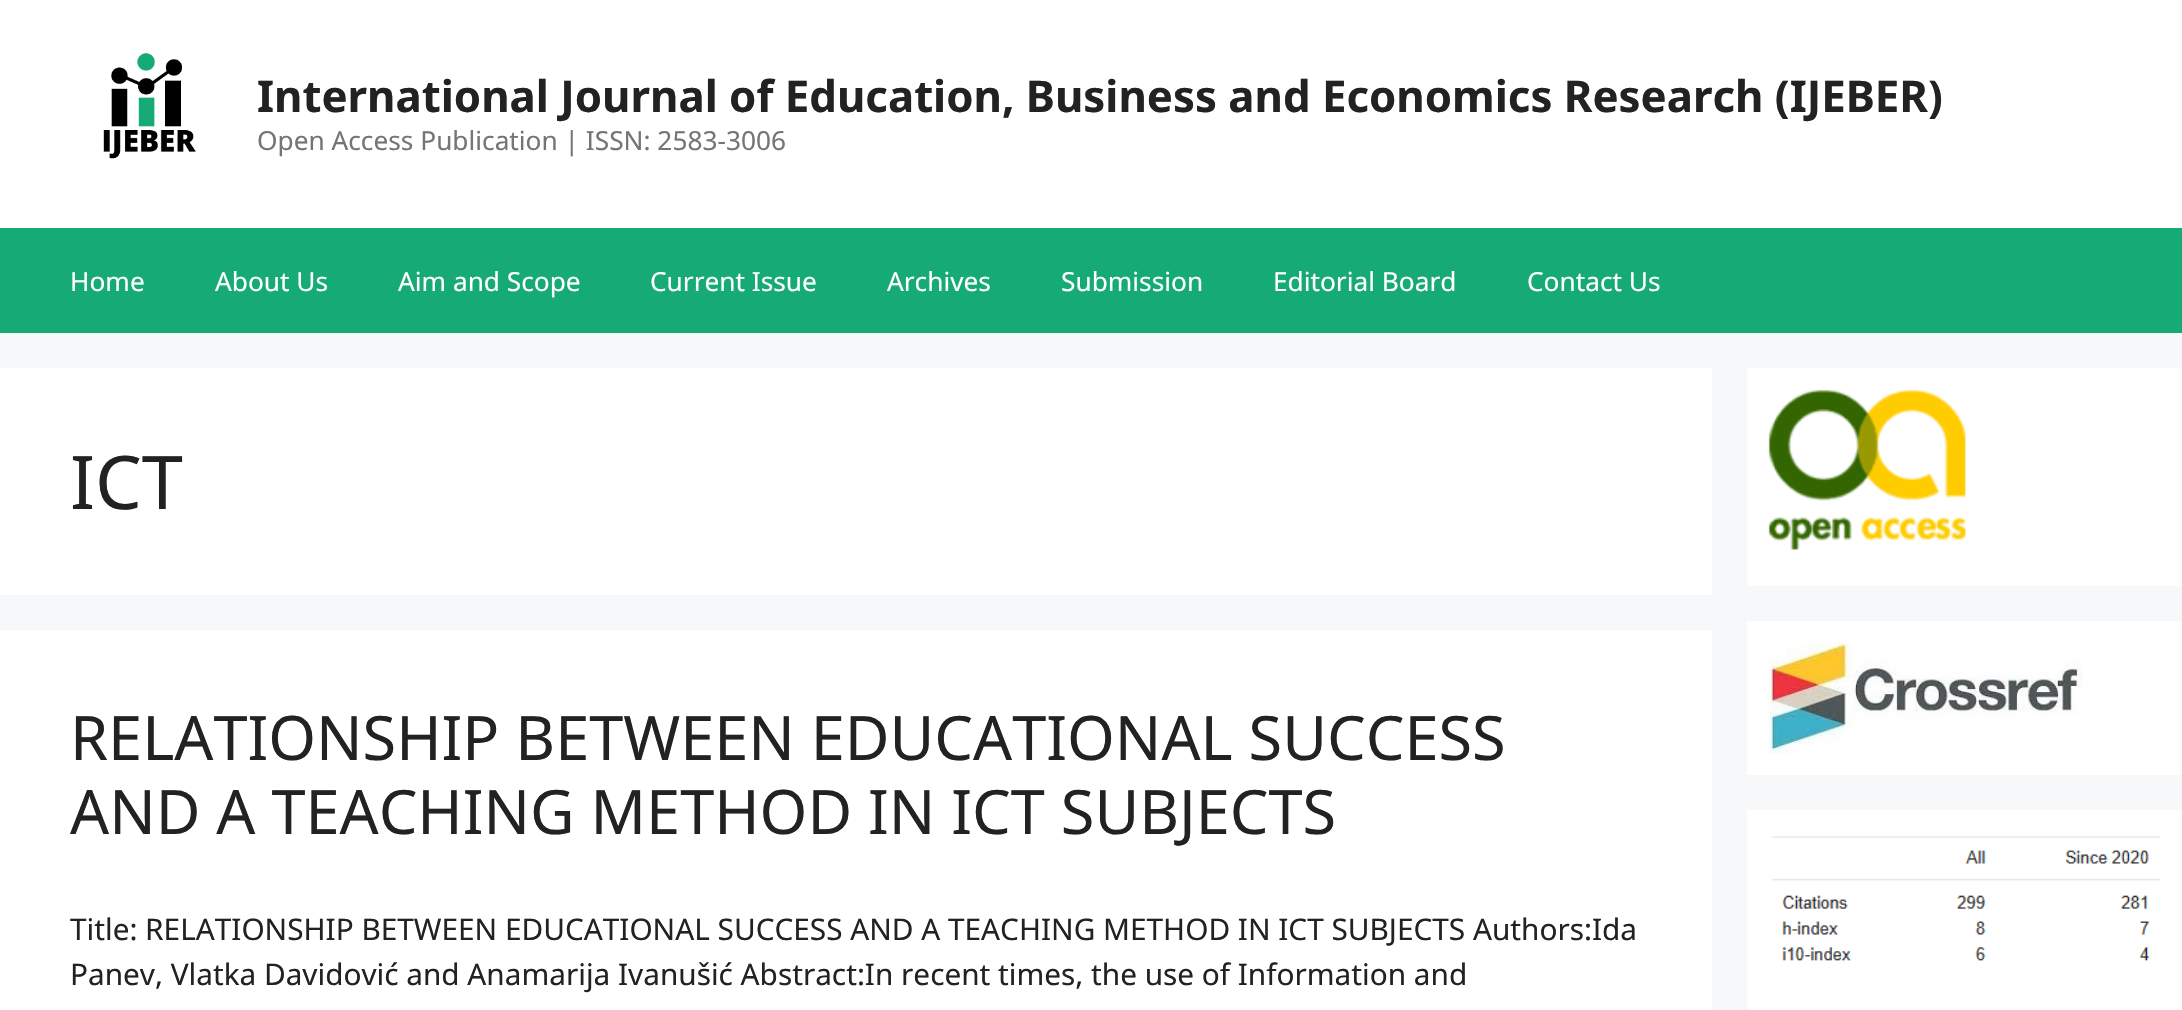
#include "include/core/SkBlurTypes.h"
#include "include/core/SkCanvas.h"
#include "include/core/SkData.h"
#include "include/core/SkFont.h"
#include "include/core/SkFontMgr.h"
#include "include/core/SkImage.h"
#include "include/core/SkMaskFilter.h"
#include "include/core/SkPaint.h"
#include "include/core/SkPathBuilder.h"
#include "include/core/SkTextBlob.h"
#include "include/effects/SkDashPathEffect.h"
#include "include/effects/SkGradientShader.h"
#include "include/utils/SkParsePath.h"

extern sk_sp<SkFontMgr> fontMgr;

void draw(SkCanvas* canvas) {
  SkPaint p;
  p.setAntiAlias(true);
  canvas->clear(SkColorSetRGB(247, 248, 249));
  p.setColor(SK_ColorWHITE);
  canvas->drawRect(SkRect::MakeLTRB(0, 0, 2182, 228), p);
  canvas->drawImageRect(SkImages::DeferredFromEncodedData(SkData::MakeFromFileName("images/1.png")), SkRect::MakeLTRB(103, 53, 196, 159), SkSamplingOptions());
  p.setColor(SkColorSetRGB(22, 170, 116));
  canvas->drawRect(SkRect::MakeLTRB(0, 228, 2182, 333), p);
  p.setColor(SK_ColorWHITE);
  canvas->drawRect(SkRect::MakeLTRB(0, 368, 1712, 595), p);
  canvas->drawRect(SkRect::MakeLTRB(0, 630, 1712, 1010), p);
  canvas->drawRect(SkRect::MakeLTRB(1747, 368, 2182, 586), p);
  canvas->drawImageRect(SkImages::DeferredFromEncodedData(SkData::MakeFromFileName("images/2.png")), SkRect::MakeLTRB(1768, 389, 1966, 550), SkSamplingOptions());
  canvas->drawRect(SkRect::MakeLTRB(1747, 621, 2182, 775), p);
  canvas->drawImageRect(SkImages::DeferredFromEncodedData(SkData::MakeFromFileName("images/3.png")), SkRect::MakeLTRB(1767, 642, 2083, 754), SkSamplingOptions());
  canvas->drawRect(SkRect::MakeLTRB(1747, 810, 2182, 1010), p);
  canvas->drawImageRect(SkImages::DeferredFromEncodedData(SkData::MakeFromFileName("images/4.png")), SkRect::MakeLTRB(1772, 836, 2160, 961), SkSamplingOptions());
  SkFont font1(fontMgr->matchFamilyStyle("Noto Sans", SkFontStyle::Bold()), 43.75f);
  font1.setSubpixel(true);
  p.setColor(SkColorSetRGB(34, 34, 34));
  canvas->drawString("International Journal of Education, Business and Economics Research (IJEBER)", 257, 112, font1, p);
  SkFont font2(fontMgr->matchFamilyStyle("Noto Sans", SkFontStyle::Normal()), 26.25f);
  font2.setSubpixel(true);
  p.setColor(SkColorSetRGB(117, 117, 117));
  canvas->drawString("Open Access Publication | ISSN: 2583-3006", 257, 150, font2, p);
  p.setColor(SK_ColorWHITE);
  canvas->drawString("Home", 70, 291, font2, p);
  canvas->drawString("About Us", 215, 291, font2, p);
  canvas->drawString("Aim and Scope", 398, 291, font2, p);
  canvas->drawString("Current Issue", 650, 291, font2, p);
  canvas->drawString("Archives", 887, 291, font2, p);
  canvas->drawString("Submission", 1061, 291, font2, p);
  canvas->drawString("Editorial Board", 1273, 291, font2, p);
  canvas->drawString("Contact Us", 1527, 291, font2, p);
  SkFont font3(fontMgr->matchFamilyStyle("Noto Sans", SkFontStyle::Normal()), 74);
  font3.setSubpixel(true);
  p.setColor(SkColorSetRGB(34, 34, 34));
  canvas->drawString("ICT", 70, 509, font3, p);
  SkFont font4(fontMgr->matchFamilyStyle("Noto Sans", SkFontStyle::Normal()), 61.25f);
  font4.setSubpixel(true);
  canvas->drawString("RELATIONSHIP BETWEEN EDUCATIONAL SUCCESS", 70, 760, font4, p);
  canvas->drawString("AND A TEACHING METHOD IN ICT SUBJECTS", 70, 834, font4, p);
  SkFont font5(fontMgr->matchFamilyStyle("Noto Sans", SkFontStyle::Normal()), 29.75f);
  font5.setSubpixel(true);
  canvas->drawString("Title: RELATIONSHIP BETWEEN EDUCATIONAL SUCCESS AND A TEACHING METHOD IN ICT SUBJECTS Authors:Ida", 70, 940, font5, p);
  canvas->drawString("Panev, Vlatka Davidović and Anamarija Ivanušić Abstract:In recent times, the use of Information and", 70, 985, font5, p);
}
